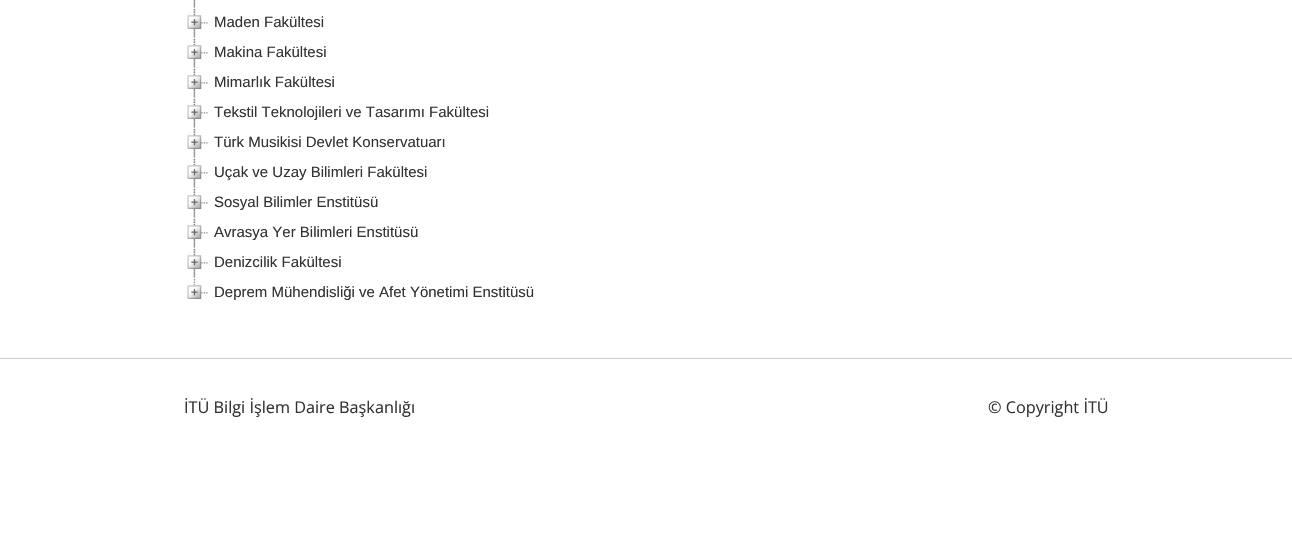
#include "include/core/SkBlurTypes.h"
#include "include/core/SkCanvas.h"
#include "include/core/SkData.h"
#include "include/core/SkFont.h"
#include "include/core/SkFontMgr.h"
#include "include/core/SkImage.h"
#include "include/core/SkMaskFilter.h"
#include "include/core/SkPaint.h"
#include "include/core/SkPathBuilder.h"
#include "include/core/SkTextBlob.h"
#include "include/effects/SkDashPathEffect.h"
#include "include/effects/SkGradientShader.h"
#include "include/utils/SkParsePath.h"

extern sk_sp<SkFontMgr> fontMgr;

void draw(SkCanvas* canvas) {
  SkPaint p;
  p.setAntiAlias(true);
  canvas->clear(SK_ColorWHITE);
  canvas->drawImageRect(SkImages::DeferredFromEncodedData(SkData::MakeFromFileName("images/1.png")), SkRect::MakeLTRB(193, 0, 196, 8), SkSamplingOptions());
  canvas->drawImageRect(SkImages::DeferredFromEncodedData(SkData::MakeFromFileName("images/2.png")), SkRect::MakeLTRB(193, 0, 196, 7), SkSamplingOptions());
  canvas->drawImageRect(SkImages::DeferredFromEncodedData(SkData::MakeFromFileName("images/3.png")), SkRect::MakeLTRB(193, 7, 196, 38), SkSamplingOptions());
  canvas->drawImageRect(SkImages::DeferredFromEncodedData(SkData::MakeFromFileName("images/4.png")), SkRect::MakeLTRB(193, 8, 208, 37), SkSamplingOptions());
  canvas->drawImageRect(SkImages::DeferredFromEncodedData(SkData::MakeFromFileName("images/5.png")), SkRect::MakeLTRB(187, 15, 202, 29), SkSamplingOptions());
  canvas->drawImageRect(SkImages::DeferredFromEncodedData(SkData::MakeFromFileName("images/3.png")), SkRect::MakeLTRB(193, 37, 196, 68), SkSamplingOptions());
  canvas->drawImageRect(SkImages::DeferredFromEncodedData(SkData::MakeFromFileName("images/4.png")), SkRect::MakeLTRB(193, 38, 208, 67), SkSamplingOptions());
  canvas->drawImageRect(SkImages::DeferredFromEncodedData(SkData::MakeFromFileName("images/5.png")), SkRect::MakeLTRB(187, 45, 202, 59), SkSamplingOptions());
  canvas->drawImageRect(SkImages::DeferredFromEncodedData(SkData::MakeFromFileName("images/3.png")), SkRect::MakeLTRB(193, 67, 196, 98), SkSamplingOptions());
  canvas->drawImageRect(SkImages::DeferredFromEncodedData(SkData::MakeFromFileName("images/4.png")), SkRect::MakeLTRB(193, 68, 208, 97), SkSamplingOptions());
  canvas->drawImageRect(SkImages::DeferredFromEncodedData(SkData::MakeFromFileName("images/5.png")), SkRect::MakeLTRB(187, 75, 202, 89), SkSamplingOptions());
  canvas->drawImageRect(SkImages::DeferredFromEncodedData(SkData::MakeFromFileName("images/3.png")), SkRect::MakeLTRB(193, 97, 196, 128), SkSamplingOptions());
  canvas->drawImageRect(SkImages::DeferredFromEncodedData(SkData::MakeFromFileName("images/4.png")), SkRect::MakeLTRB(193, 98, 208, 127), SkSamplingOptions());
  canvas->drawImageRect(SkImages::DeferredFromEncodedData(SkData::MakeFromFileName("images/5.png")), SkRect::MakeLTRB(187, 105, 202, 119), SkSamplingOptions());
  canvas->drawImageRect(SkImages::DeferredFromEncodedData(SkData::MakeFromFileName("images/3.png")), SkRect::MakeLTRB(193, 127, 196, 158), SkSamplingOptions());
  canvas->drawImageRect(SkImages::DeferredFromEncodedData(SkData::MakeFromFileName("images/4.png")), SkRect::MakeLTRB(193, 128, 208, 157), SkSamplingOptions());
  canvas->drawImageRect(SkImages::DeferredFromEncodedData(SkData::MakeFromFileName("images/5.png")), SkRect::MakeLTRB(187, 135, 202, 149), SkSamplingOptions());
  canvas->drawImageRect(SkImages::DeferredFromEncodedData(SkData::MakeFromFileName("images/3.png")), SkRect::MakeLTRB(193, 157, 196, 188), SkSamplingOptions());
  canvas->drawImageRect(SkImages::DeferredFromEncodedData(SkData::MakeFromFileName("images/4.png")), SkRect::MakeLTRB(193, 158, 208, 187), SkSamplingOptions());
  canvas->drawImageRect(SkImages::DeferredFromEncodedData(SkData::MakeFromFileName("images/6.png")), SkRect::MakeLTRB(187, 165, 202, 179), SkSamplingOptions());
  canvas->drawImageRect(SkImages::DeferredFromEncodedData(SkData::MakeFromFileName("images/3.png")), SkRect::MakeLTRB(193, 187, 196, 218), SkSamplingOptions());
  canvas->drawImageRect(SkImages::DeferredFromEncodedData(SkData::MakeFromFileName("images/4.png")), SkRect::MakeLTRB(193, 188, 208, 217), SkSamplingOptions());
  canvas->drawImageRect(SkImages::DeferredFromEncodedData(SkData::MakeFromFileName("images/5.png")), SkRect::MakeLTRB(187, 195, 202, 209), SkSamplingOptions());
  canvas->drawImageRect(SkImages::DeferredFromEncodedData(SkData::MakeFromFileName("images/3.png")), SkRect::MakeLTRB(193, 217, 196, 248), SkSamplingOptions());
  canvas->drawImageRect(SkImages::DeferredFromEncodedData(SkData::MakeFromFileName("images/4.png")), SkRect::MakeLTRB(193, 218, 208, 247), SkSamplingOptions());
  canvas->drawImageRect(SkImages::DeferredFromEncodedData(SkData::MakeFromFileName("images/5.png")), SkRect::MakeLTRB(187, 225, 202, 239), SkSamplingOptions());
  canvas->drawImageRect(SkImages::DeferredFromEncodedData(SkData::MakeFromFileName("images/3.png")), SkRect::MakeLTRB(193, 247, 196, 278), SkSamplingOptions());
  canvas->drawImageRect(SkImages::DeferredFromEncodedData(SkData::MakeFromFileName("images/4.png")), SkRect::MakeLTRB(193, 248, 208, 277), SkSamplingOptions());
  canvas->drawImageRect(SkImages::DeferredFromEncodedData(SkData::MakeFromFileName("images/5.png")), SkRect::MakeLTRB(187, 255, 202, 269), SkSamplingOptions());
  canvas->drawImageRect(SkImages::DeferredFromEncodedData(SkData::MakeFromFileName("images/7.png")), SkRect::MakeLTRB(193, 278, 208, 294), SkSamplingOptions());
  canvas->drawImageRect(SkImages::DeferredFromEncodedData(SkData::MakeFromFileName("images/8.png")), SkRect::MakeLTRB(187, 285, 202, 299), SkSamplingOptions());
  p.setColor(SkColorSetRGB(204, 204, 204));
  canvas->drawRect(SkRect::MakeLTRB(0, 358, 1292, 359), p);
  SkFont font1(fontMgr->matchFamilyStyle("Liberation Sans", SkFontStyle::Normal()), 15);
  font1.setSubpixel(true);
  p.setColor(SkColorSetRGB(51, 51, 51));
  canvas->drawString("Maden Fakültesi", 214, 27, font1, p);
  canvas->drawString("Makina Fakültesi", 214, 57, font1, p);
  canvas->drawString("Mimarlık Fakültesi", 214, 87, font1, p);
  canvas->drawString("Tekstil Teknolojileri ve Tasarımı Fakültesi", 214, 117, font1, p);
  canvas->drawString("Türk Musikisi Devlet Konservatuarı", 214, 147, font1, p);
  canvas->drawString("Uçak ve Uzay Bilimleri Fakültesi", 214, 177, font1, p);
  canvas->drawString("Sosyal Bilimler Enstitüsü", 214, 207, font1, p);
  canvas->drawString("Avrasya Yer Bilimleri Enstitüsü", 214, 237, font1, p);
  canvas->drawString("Denizcilik Fakültesi", 214, 267, font1, p);
  canvas->drawString("Deprem Mühendisliği ve Afet Yönetimi Enstitüsü", 214, 297, font1, p);
  SkFont font2(fontMgr->matchFamilyStyle("Open Sans", SkFontStyle::Normal()), 16.25f);
  font2.setSubpixel(true);
  canvas->drawString("İTÜ Bilgi İşlem Daire Başkanlığı", 184, 413, font2, p);
  canvas->drawString("© Copyright İTÜ", 988, 413, font2, p);
}
